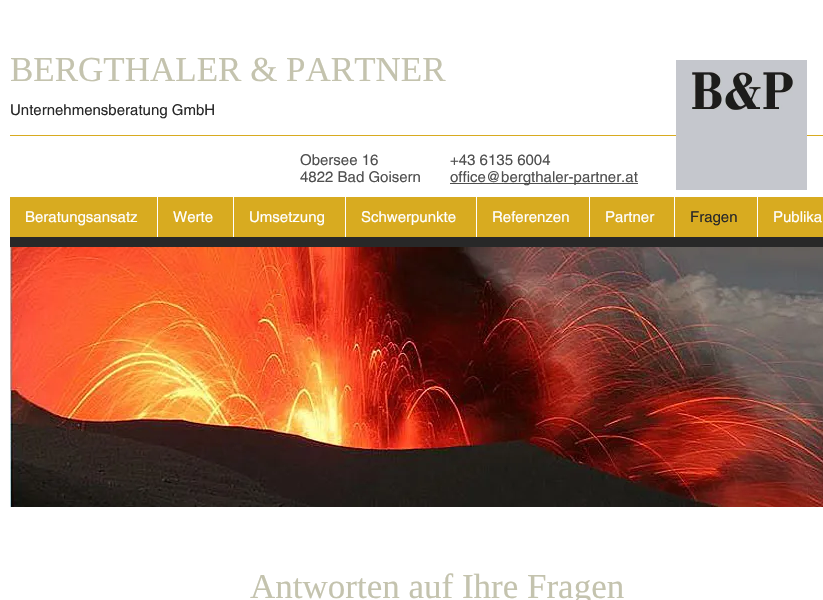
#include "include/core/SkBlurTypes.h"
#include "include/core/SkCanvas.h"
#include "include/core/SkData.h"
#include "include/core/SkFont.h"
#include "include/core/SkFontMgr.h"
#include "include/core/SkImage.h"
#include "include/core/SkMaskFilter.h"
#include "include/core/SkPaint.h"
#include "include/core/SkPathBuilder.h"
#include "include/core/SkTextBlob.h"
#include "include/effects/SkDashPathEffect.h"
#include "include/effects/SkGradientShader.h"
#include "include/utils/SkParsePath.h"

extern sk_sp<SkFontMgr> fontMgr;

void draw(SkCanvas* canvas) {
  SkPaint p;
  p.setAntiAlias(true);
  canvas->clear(SK_ColorWHITE);
  p.setColor(SkColorSetRGB(216, 171, 32));
  canvas->drawRect(SkRect::MakeLTRB(10, 135, 823, 136), p);
  p.setColor(SkColorSetRGB(197, 199, 205));
  canvas->drawRect(SkRect::MakeLTRB(676, 60, 807, 190), p);
  canvas->drawImageRect(SkImages::DeferredFromEncodedData(SkData::MakeFromFileName("images/1.png")), SkRect::MakeLTRB(692, 71, 795, 110), SkSamplingOptions());
  p.setColor(SkColorSetRGB(79, 79, 79));
  canvas->drawRect(SkRect::MakeLTRB(450, 183, 638, 184), p);
  p.setColor(SkColorSetRGB(216, 171, 32));
  canvas->drawRect(SkRect::MakeLTRB(10, 197, 823, 237), p);
  p.setColor(SK_ColorWHITE);
  canvas->drawRect(SkRect::MakeLTRB(157, 197, 158, 237), p);
  canvas->drawRect(SkRect::MakeLTRB(233, 197, 234, 237), p);
  canvas->drawRect(SkRect::MakeLTRB(345, 197, 346, 237), p);
  canvas->drawRect(SkRect::MakeLTRB(476, 197, 477, 237), p);
  canvas->drawRect(SkRect::MakeLTRB(589, 197, 590, 237), p);
  canvas->drawRect(SkRect::MakeLTRB(674, 197, 675, 237), p);
  canvas->drawRect(SkRect::MakeLTRB(757, 197, 758, 237), p);
  p.setColor(SkColorSetRGB(40, 40, 40));
  canvas->drawRect(SkRect::MakeLTRB(10, 237, 823, 247), p);
  canvas->drawImageRect(SkImages::DeferredFromEncodedData(SkData::MakeFromFileName("images/2.png")), SkRect::MakeLTRB(10, 247, 823, 507), SkSamplingOptions());
  SkFont font1(fontMgr->matchFamilyStyle("Liberation Serif", SkFontStyle::Normal()), 35);
  font1.setSubpixel(true);
  p.setColor(SkColorSetRGB(196, 195, 174));
  canvas->drawString("BERGTHALER & PARTNER", 10, 81, font1, p);
  SkFont font2(fontMgr->matchFamilyStyle("helvetica", SkFontStyle::Normal()), 15);
  font2.setSubpixel(true);
  p.setColor(SkColorSetRGB(40, 40, 40));
  canvas->drawString("Unternehmensberatung GmbH", 10, 115, font2, p);
  p.setColor(SkColorSetRGB(79, 79, 79));
  canvas->drawString("Obersee 16", 300, 165, font2, p);
  canvas->drawString("4822 Bad Goisern", 300, 182, font2, p);
  canvas->drawString("+43 6135 6004", 450, 165, font2, p);
  canvas->drawString("office@bergthaler-partner.at", 450, 182, font2, p);
  p.setColor(SK_ColorWHITE);
  canvas->drawString("Beratungsansatz", 25, 222, font2, p);
  canvas->drawString("Werte", 173, 222, font2, p);
  canvas->drawString("Umsetzung", 249, 222, font2, p);
  canvas->drawString("Schwerpunkte", 361, 222, font2, p);
  canvas->drawString("Referenzen", 492, 222, font2, p);
  canvas->drawString("Partner", 605, 222, font2, p);
  p.setColor(SkColorSetRGB(40, 40, 40));
  canvas->drawString("Fragen", 690, 222, font2, p);
  p.setColor(SK_ColorWHITE);
  canvas->drawString("Publika", 773, 222, font2, p);
  p.setColor(SkColorSetRGB(196, 195, 174));
  canvas->drawString("Antworten auf Ihre Fragen", 250, 598, font1, p);
}
